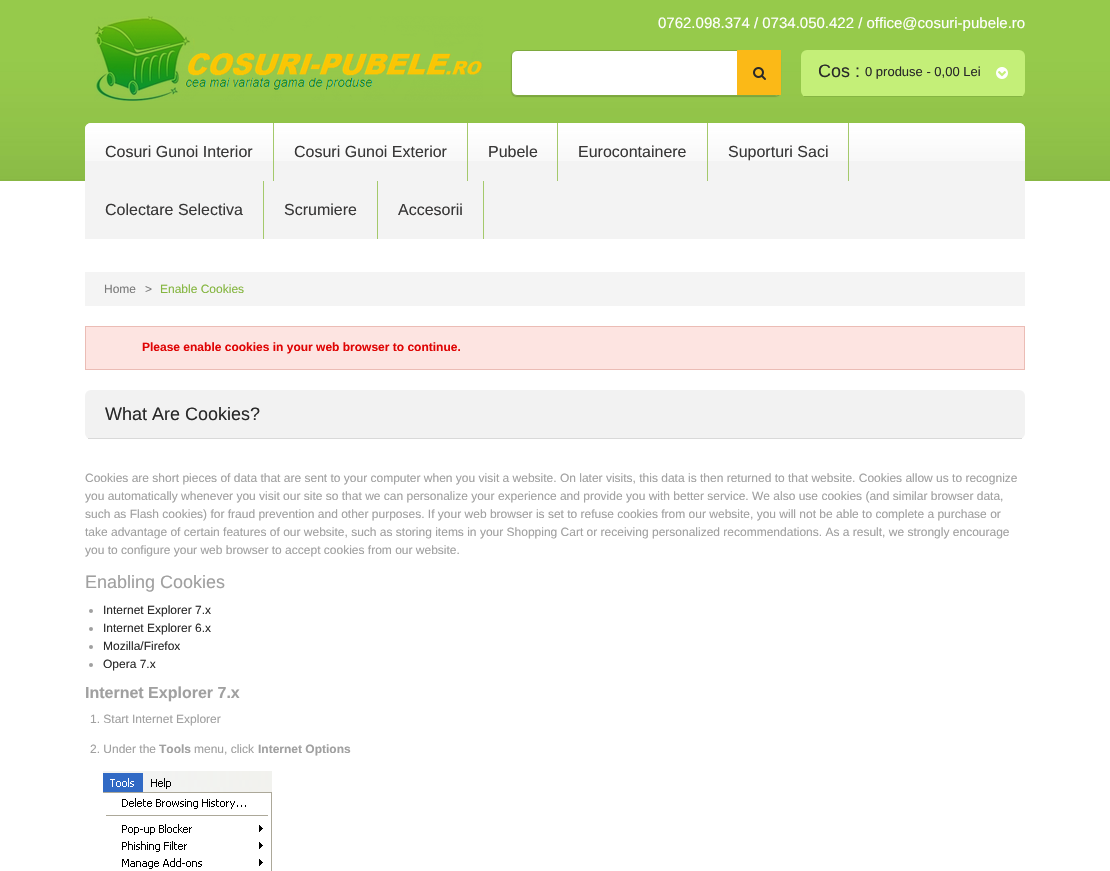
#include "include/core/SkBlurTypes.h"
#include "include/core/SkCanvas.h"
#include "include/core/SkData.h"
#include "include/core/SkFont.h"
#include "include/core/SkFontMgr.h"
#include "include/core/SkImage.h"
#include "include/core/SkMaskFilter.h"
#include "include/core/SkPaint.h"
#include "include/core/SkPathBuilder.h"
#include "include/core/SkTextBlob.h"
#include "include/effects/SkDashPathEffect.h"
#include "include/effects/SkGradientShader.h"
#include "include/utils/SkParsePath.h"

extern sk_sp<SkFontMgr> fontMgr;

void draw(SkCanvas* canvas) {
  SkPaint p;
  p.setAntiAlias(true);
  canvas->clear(SK_ColorWHITE);
  p.setColor(SkColorSetRGB(136, 183, 68));
  canvas->drawRect(SkRect::MakeLTRB(0, 179, 1110, 181), p);
  canvas->drawImageRect(SkImages::DeferredFromEncodedData(SkData::MakeFromFileName("images/1.png")), SkRect::MakeLTRB(0, 0, 1110, 179), SkSamplingOptions());
  canvas->drawImageRect(SkImages::DeferredFromEncodedData(SkData::MakeFromFileName("images/2.png")), SkRect::MakeLTRB(94, 16, 483, 101), SkSamplingOptions());
  p.setColor(SkColorSetARGB(46, 0, 0, 0));
  p.setMaskFilter(SkMaskFilter::MakeBlur(kNormal_SkBlurStyle, 0.5f));
  canvas->drawRoundRect(SkRect::MakeLTRB(511, 51, 781, 97), 6, 6, p);
  p.setMaskFilter(nullptr);
  p.setColor(SK_ColorWHITE);
  canvas->drawRoundRect(SkRect::MakeLTRB(511.5f, 50.5f, 780.5f, 95.5f), 5.5f, 5.5f, p);
  p.setStyle(SkPaint::kStroke_Style);
  p.setStrokeWidth(1);
  p.setColor(SkColorSetRGB(126, 170, 63));
  canvas->drawRoundRect(SkRect::MakeLTRB(511.5f, 50.5f, 780.5f, 95.5f), 5.5f, 5.5f, p);
  p.setStyle(SkPaint::kFill_Style);
  p.setColor(SkColorSetRGB(251, 185, 23));
  canvas->drawRect(SkRect::MakeLTRB(737, 50, 781, 95), p);
  canvas->drawImageRect(SkImages::DeferredFromEncodedData(SkData::MakeFromFileName("images/3.png")), SkRect::MakeLTRB(753, 67, 766, 80), SkSamplingOptions());
  p.setColor(SkColorSetRGB(196, 239, 120));
  canvas->drawRoundRect(SkRect::MakeLTRB(801, 50, 1025, 97), 6, 6, p);
  p.setColor(SkColorSetRGB(134, 181, 67));
  canvas->drawRect(SkRect::MakeLTRB(804, 96, 1022, 97), p);
  canvas->drawImageRect(SkImages::DeferredFromEncodedData(SkData::MakeFromFileName("images/4.png")), SkRect::MakeLTRB(996, 67, 1008, 79), SkSamplingOptions());
  p.setColor(SkColorSetRGB(243, 243, 243));
  canvas->drawPath(SkPathBuilder().moveTo(91, 123).lineTo(1019, 123).cubicTo(1022.5f, 123, 1025, 125.5f, 1025, 129).lineTo(1025, 239).lineTo(85, 239).lineTo(85, 129).cubicTo(85, 125.5f, 87.5f, 123, 91, 123).close().detach(), p);
  canvas->drawImageRect(SkImages::DeferredFromEncodedData(SkData::MakeFromFileName("images/5.png")), SkRect::MakeLTRB(85, 123, 1025, 161), SkSamplingOptions());
  p.setColor(SkColorSetRGB(164, 201, 107));
  canvas->drawRect(SkRect::MakeLTRB(273, 123, 274, 181), p);
  canvas->drawRect(SkRect::MakeLTRB(467, 123, 468, 181), p);
  canvas->drawRect(SkRect::MakeLTRB(557, 123, 558, 181), p);
  canvas->drawRect(SkRect::MakeLTRB(707, 123, 708, 181), p);
  canvas->drawRect(SkRect::MakeLTRB(848, 123, 849, 181), p);
  canvas->drawRect(SkRect::MakeLTRB(263, 181, 264, 239), p);
  canvas->drawRect(SkRect::MakeLTRB(377, 181, 378, 239), p);
  canvas->drawRect(SkRect::MakeLTRB(483, 181, 484, 239), p);
  p.setColor(SkColorSetRGB(244, 244, 244));
  canvas->drawRect(SkRect::MakeLTRB(85, 272, 1025, 306), p);
  p.setColor(SkColorSetRGB(253, 228, 225));
  canvas->drawRect(SkRect::MakeLTRB(85.5f, 326.5f, 1024.5f, 369.5f), p);
  p.setStyle(SkPaint::kStroke_Style);
  p.setColor(SkColorSetRGB(235, 188, 181));
  canvas->drawRect(SkRect::MakeLTRB(85.5f, 326.5f, 1024.5f, 369.5f), p);
  p.setStyle(SkPaint::kFill_Style);
  p.setColor(SkColorSetRGB(242, 242, 242));
  canvas->drawRoundRect(SkRect::MakeLTRB(85, 390, 1025, 439), 6, 6, p);
  p.setColor(SkColorSetRGB(217, 217, 217));
  canvas->drawRect(SkRect::MakeLTRB(88, 438, 1022, 439), p);
  p.setColor(SkColorSetRGB(160, 160, 160));
  canvas->drawCircle(91, 611, 2, p);
  canvas->drawCircle(91, 629, 2, p);
  canvas->drawCircle(91, 647, 2, p);
  canvas->drawCircle(91, 665, 2, p);
  canvas->drawImageRect(SkImages::DeferredFromEncodedData(SkData::MakeFromFileName("images/6.png")), SkRect::MakeLTRB(103, 771, 272, 871), SkSamplingOptions());
  SkFont font1(fontMgr->matchFamilyStyle("Liberation Sans", SkFontStyle::Normal()), 15);
  font1.setSubpixel(true);
  p.setColor(SK_ColorWHITE);
  canvas->drawString("0762.098.374 / 0734.050.422 / office@cosuri-pubele.ro", 658, 28, font1, p);
  SkFont font2(fontMgr->matchFamilyStyle("Liberation Sans", SkFontStyle::Normal()), 18);
  font2.setSubpixel(true);
  p.setColor(SkColorSetRGB(41, 41, 41));
  canvas->drawString("Cos :", 818, 77, font2, p);
  SkFont font3(fontMgr->matchFamilyStyle("Liberation Sans", SkFontStyle::Normal()), 13);
  font3.setSubpixel(true);
  canvas->drawString("0 produse - 0,00 Lei", 865, 76, font3, p);
  SkFont font4(fontMgr->matchFamilyStyle("Liberation Sans", SkFontStyle::Normal()), 16);
  font4.setSubpixel(true);
  p.setColor(SkColorSetRGB(56, 55, 55));
  canvas->drawString("Cosuri Gunoi Interior", 105, 157, font4, p);
  canvas->drawString("Cosuri Gunoi Exterior", 294, 157, font4, p);
  canvas->drawString("Pubele", 488, 157, font4, p);
  canvas->drawString("Eurocontainere", 578, 157, font4, p);
  canvas->drawString("Suporturi Saci", 728, 157, font4, p);
  canvas->drawString("Colectare Selectiva", 105, 215, font4, p);
  canvas->drawString("Scrumiere", 284, 215, font4, p);
  canvas->drawString("Accesorii", 398, 215, font4, p);
  SkFont font5(fontMgr->matchFamilyStyle("Liberation Sans", SkFontStyle::Normal()), 12);
  font5.setSubpixel(true);
  p.setColor(SkColorSetRGB(123, 123, 123));
  canvas->drawString("Home", 104, 293, font5, p);
  canvas->drawString(">", 145, 293, font5, p);
  p.setColor(SkColorSetRGB(133, 182, 64));
  canvas->drawString("Enable Cookies", 160, 293, font5, p);
  SkFont font6(fontMgr->matchFamilyStyle("Liberation Sans", SkFontStyle::Bold()), 12);
  font6.setSubpixel(true);
  p.setColor(SkColorSetRGB(223, 5, 5));
  canvas->drawString("Please enable cookies in your web browser to continue.", 142, 351, font6, p);
  p.setColor(SkColorSetRGB(41, 41, 41));
  canvas->drawString("What Are Cookies?", 105, 420, font2, p);
  p.setColor(SkColorSetRGB(160, 160, 160));
  canvas->drawString("Cookies are short pieces of data that are sent to your computer when you visit a website. On later visits, this data is then returned to that website. Cookies allow us to recognize", 85, 482, font5, p);
  canvas->drawString("you automatically whenever you visit our site so that we can personalize your experience and provide you with better service. We also use cookies (and similar browser data,", 85, 500, font5, p);
  canvas->drawString("such as Flash cookies) for fraud prevention and other purposes. If your web browser is set to refuse cookies from our website, you will not be able to complete a purchase or", 85, 518, font5, p);
  canvas->drawString("take advantage of certain features of our website, such as storing items in your Shopping Cart or receiving personalized recommendations. As a result, we strongly encourage", 85, 536, font5, p);
  canvas->drawString("you to configure your web browser to accept cookies from our website.", 85, 554, font5, p);
  canvas->drawString("Enabling Cookies", 85, 588, font2, p);
  p.setColor(SkColorSetRGB(41, 41, 41));
  canvas->drawString("Internet Explorer 7.x", 103, 614, font5, p);
  canvas->drawString("Internet Explorer 6.x", 103, 632, font5, p);
  canvas->drawString("Mozilla/Firefox", 103, 650, font5, p);
  canvas->drawString("Opera 7.x", 103, 668, font5, p);
  SkFont font7(fontMgr->matchFamilyStyle("Liberation Sans", SkFontStyle::Bold()), 16);
  font7.setSubpixel(true);
  p.setColor(SkColorSetRGB(160, 160, 160));
  canvas->drawString("Internet Explorer 7.x", 85, 698, font7, p);
  canvas->drawString("1. Start Internet Explorer", 90, 723, font5, p);
  canvas->drawString("2. Under the", 90, 753, font5, p);
  canvas->drawString("Tools", 159, 753, font6, p);
  canvas->drawString("menu, click", 194, 753, font5, p);
  canvas->drawString("Internet Options", 258, 753, font6, p);
}
